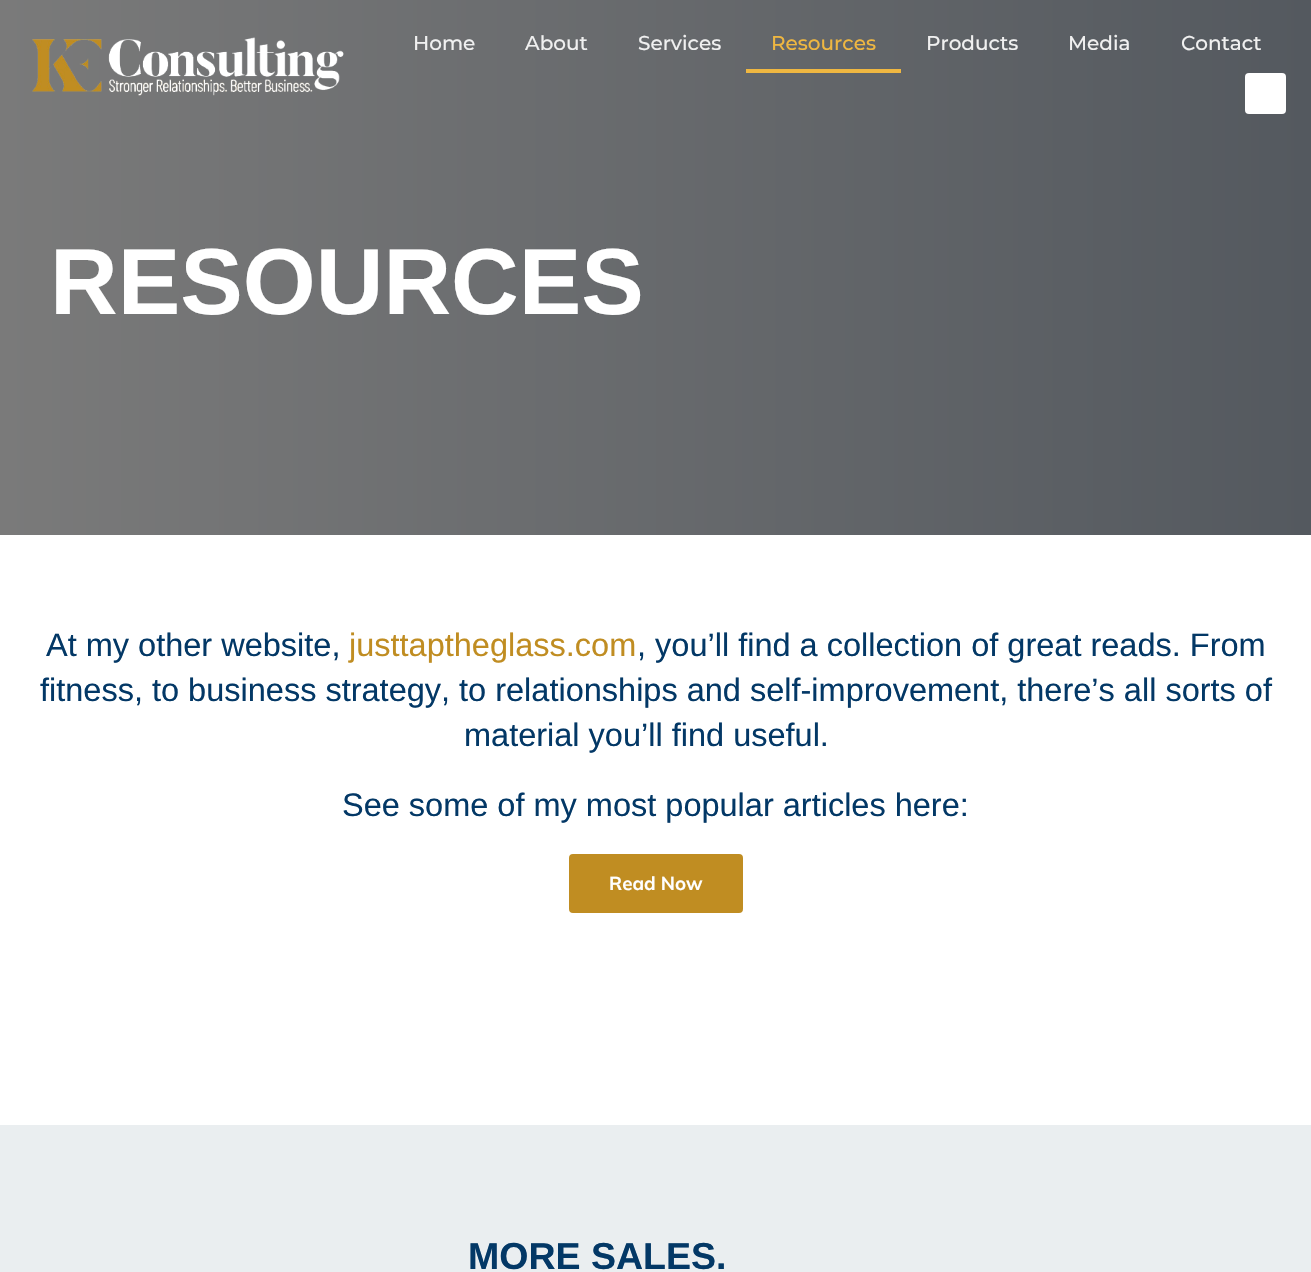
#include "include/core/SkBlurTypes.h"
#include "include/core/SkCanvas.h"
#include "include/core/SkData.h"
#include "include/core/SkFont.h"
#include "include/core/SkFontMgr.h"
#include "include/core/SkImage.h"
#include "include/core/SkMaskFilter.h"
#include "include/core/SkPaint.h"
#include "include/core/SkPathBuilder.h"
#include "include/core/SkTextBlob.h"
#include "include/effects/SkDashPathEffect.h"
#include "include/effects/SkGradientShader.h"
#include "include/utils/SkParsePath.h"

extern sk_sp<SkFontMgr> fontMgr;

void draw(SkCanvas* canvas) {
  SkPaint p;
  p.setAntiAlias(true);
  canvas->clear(SK_ColorWHITE);
  {
    const SkColor colors[] = {SkColorSetRGB(122, 122, 122), SkColorSetRGB(84, 89, 95)};
    const float stops[] = {0, 1};
    const SkPoint ends[] = {{0, 238}, {1311, 238}};
    p.setShader(SkGradientShader::MakeLinear(ends, colors, stops, 2, SkTileMode::kClamp));
    p.setAlpha(255);
  }
  canvas->drawRect(SkRect::MakeLTRB(0, 0, 1311, 535), p);
  canvas->drawImageRect(SkImages::DeferredFromEncodedData(SkData::MakeFromFileName("images/1.png")), SkRect::MakeLTRB(32, 37, 344, 96), SkSamplingOptions());
  p.setShader(nullptr);
  p.setColor(SkColorSetRGB(239, 183, 65));
  canvas->drawRect(SkRect::MakeLTRB(746, 69, 901, 73), p);
  p.setColor(SK_ColorWHITE);
  canvas->drawRoundRect(SkRect::MakeLTRB(1245, 73, 1286, 114), 4, 4, p);
  p.setColor(SkColorSetRGB(192, 141, 34));
  canvas->drawRoundRect(SkRect::MakeLTRB(570.5f, 855.5f, 741.5f, 911.5f), 2.5f, 2.5f, p);
  p.setStyle(SkPaint::kStroke_Style);
  p.setStrokeWidth(3);
  canvas->drawRoundRect(SkRect::MakeLTRB(570.5f, 855.5f, 741.5f, 911.5f), 2.5f, 2.5f, p);
  p.setStyle(SkPaint::kFill_Style);
  p.setColor(SkColorSetRGB(234, 238, 240));
  canvas->drawRect(SkRect::MakeLTRB(0, 1125, 1311, 1272), p);
  SkFont font1(fontMgr->matchFamilyStyle("Montserrat", SkFontStyle(500, SkFontStyle::kNormal_Width, SkFontStyle::kUpright_Slant)), 20);
  font1.setSubpixel(true);
  p.setColor(SkColorSetRGB(240, 240, 240));
  canvas->drawString("Home", 413, 50, font1, p);
  canvas->drawString("About", 525, 50, font1, p);
  canvas->drawString("Services", 638, 50, font1, p);
  p.setColor(SkColorSetRGB(239, 183, 65));
  canvas->drawString("Resources", 771, 50, font1, p);
  p.setColor(SkColorSetRGB(240, 240, 240));
  canvas->drawString("Products", 926, 50, font1, p);
  canvas->drawString("Media", 1068, 50, font1, p);
  canvas->drawString("Contact", 1181, 50, font1, p);
  SkFont font2(fontMgr->matchFamilyStyle("Liberation Sans", SkFontStyle::Bold()), 93.75f);
  font2.setSubpixel(true);
  p.setColor(SK_ColorWHITE);
  canvas->drawString("RESOURCES", 50, 314, font2, p);
  SkFont font3(fontMgr->matchFamilyStyle("Liberation Sans", SkFontStyle::Normal()), 32.5f);
  font3.setSubpixel(true);
  p.setColor(SkColorSetRGB(3, 56, 102));
  canvas->drawString("At my other website,", 46, 656, font3, p);
  p.setColor(SkColorSetRGB(192, 141, 34));
  canvas->drawString("justtaptheglass.com", 349, 656, font3, p);
  p.setColor(SkColorSetRGB(3, 56, 102));
  canvas->drawString(", you’ll find a collection of great reads. From", 637, 656, font3, p);
  canvas->drawString("fitness, to business strategy, to relationships and self-improvement, there’s all sorts of", 40, 701, font3, p);
  canvas->drawString("material you’ll find useful.", 464, 746, font3, p);
  canvas->drawString("See some of my most popular articles here:", 342, 816, font3, p);
  SkFont font4(fontMgr->matchFamilyStyle("Mulish", SkFontStyle(200, SkFontStyle::kNormal_Width, SkFontStyle::kUpright_Slant)), 18.75f);
  font4.setSubpixel(true);
  p.setColor(SK_ColorWHITE);
  canvas->drawString("Read Now", 609, 890, font4, p);
  SkFont font5(fontMgr->matchFamilyStyle("Liberation Sans", SkFontStyle::Bold()), 37.5f);
  font5.setSubpixel(true);
  p.setColor(SkColorSetRGB(3, 56, 102));
  canvas->drawString("MORE SALES.", 468, 1269, font5, p);
}
